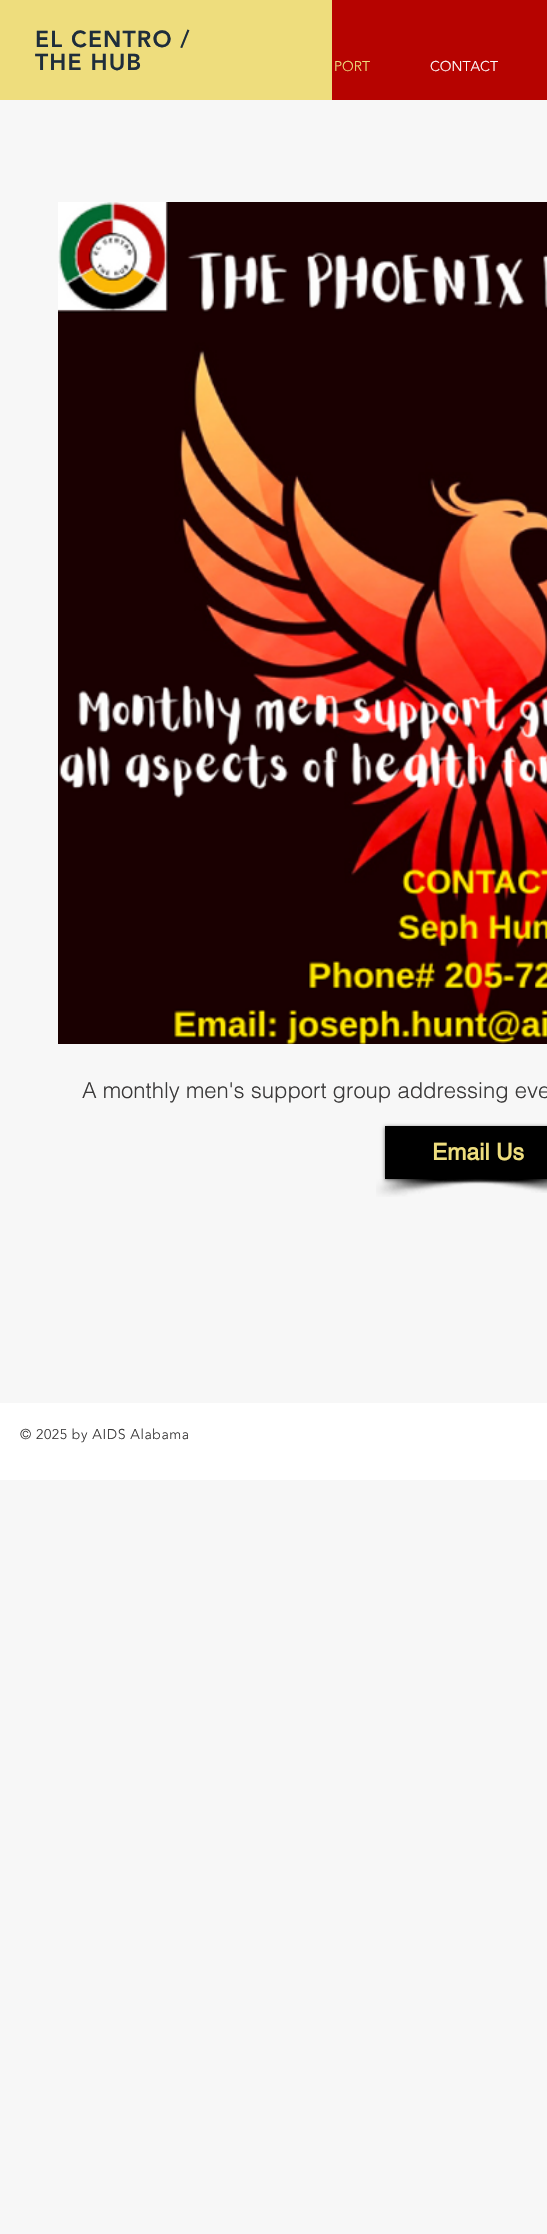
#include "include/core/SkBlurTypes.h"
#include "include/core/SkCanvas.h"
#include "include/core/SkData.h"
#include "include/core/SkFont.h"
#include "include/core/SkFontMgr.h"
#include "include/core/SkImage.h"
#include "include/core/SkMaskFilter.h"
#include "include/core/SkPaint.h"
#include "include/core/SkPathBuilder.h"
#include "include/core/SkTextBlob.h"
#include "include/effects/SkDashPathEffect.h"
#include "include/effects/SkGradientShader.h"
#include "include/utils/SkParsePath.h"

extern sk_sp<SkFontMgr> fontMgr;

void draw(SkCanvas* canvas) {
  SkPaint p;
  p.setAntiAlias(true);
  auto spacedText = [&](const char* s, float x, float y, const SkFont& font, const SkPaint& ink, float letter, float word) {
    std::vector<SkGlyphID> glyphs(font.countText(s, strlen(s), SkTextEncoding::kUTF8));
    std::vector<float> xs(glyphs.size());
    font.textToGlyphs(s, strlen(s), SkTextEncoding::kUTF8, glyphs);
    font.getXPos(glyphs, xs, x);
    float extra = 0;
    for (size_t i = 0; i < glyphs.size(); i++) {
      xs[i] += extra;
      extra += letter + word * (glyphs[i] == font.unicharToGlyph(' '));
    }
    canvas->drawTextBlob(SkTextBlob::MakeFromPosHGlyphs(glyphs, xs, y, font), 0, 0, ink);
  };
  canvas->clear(SkColorSetRGB(247, 247, 247));
  p.setColor(SkColorSetRGB(238, 221, 125));
  canvas->drawRect(SkRect::MakeLTRB(0, 0, 332, 100), p);
  p.setColor(SkColorSetRGB(182, 3, 0));
  canvas->drawRect(SkRect::MakeLTRB(332, 0, 547, 100), p);
  canvas->drawImageRect(SkImages::DeferredFromEncodedData(SkData::MakeFromFileName("images/1.png")), SkRect::MakeLTRB(58, 202, 547, 1044), SkSamplingOptions());
  canvas->drawImageRect(SkImages::DeferredFromEncodedData(SkData::MakeFromFileName("images/2.png")), SkRect::MakeLTRB(376, 1179, 530, 1197), SkSamplingOptions());
  canvas->drawImageRect(SkImages::DeferredFromEncodedData(SkData::MakeFromFileName("images/3.png")), SkRect::MakeLTRB(453, 1179, 547, 1193), SkSamplingOptions());
  p.setColor(SkColorSetARGB(153, 0, 0, 0));
  p.setMaskFilter(SkMaskFilter::MakeBlur(kNormal_SkBlurStyle, 2));
  canvas->drawRect(SkRect::MakeLTRB(385, 1127, 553, 1180), p);
  p.setMaskFilter(nullptr);
  p.setColor(SK_ColorBLACK);
  canvas->drawRect(SkRect::MakeLTRB(385, 1126, 547, 1179), p);
  p.setColor(SK_ColorWHITE);
  canvas->drawRect(SkRect::MakeLTRB(0, 1403, 547, 1480), p);
  SkFont font1(fontMgr->matchFamilyStyle("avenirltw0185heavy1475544", SkFontStyle(900, SkFontStyle::kNormal_Width, SkFontStyle::kUpright_Slant)), 23);
  font1.setSubpixel(true);
  p.setColor(SkColorSetRGB(30, 45, 59));
  spacedText("EL CENTRO /", 35, 47, font1, p, 1.1f, 0);
  spacedText("THE HUB", 35, 70, font1, p, 1.1f, 0);
  SkFont font2(fontMgr->matchFamilyStyle("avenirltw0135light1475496", SkFontStyle(300, SkFontStyle::kNormal_Width, SkFontStyle::kUpright_Slant)), 14);
  font2.setSubpixel(true);
  p.setColor(SkColorSetRGB(238, 221, 125));
  canvas->drawString("PORT", 334, 71, font2, p);
  p.setColor(SK_ColorWHITE);
  canvas->drawString("CONTACT", 430, 71, font2, p);
  SkFont font3(fontMgr->matchFamilyStyle("helvetica", SkFontStyle(300, SkFontStyle::kNormal_Width, SkFontStyle::kUpright_Slant)), 22);
  font3.setSubpixel(true);
  p.setColor(SkColorSetRGB(59, 58, 58));
  canvas->drawString("A monthly men's support group addressing eve", 82, 1098, font3, p);
  SkFont font4(fontMgr->matchFamilyStyle("helvetica", SkFontStyle::Bold()), 23);
  font4.setSubpixel(true);
  p.setColor(SkColorSetRGB(238, 221, 125));
  canvas->drawString("Email Us", 432, 1160, font4, p);
  p.setColor(SkColorSetRGB(59, 58, 58));
  spacedText("© 2025 by AIDS Alabama", 20, 1439, font2, p, 0.6f, 0);
}
